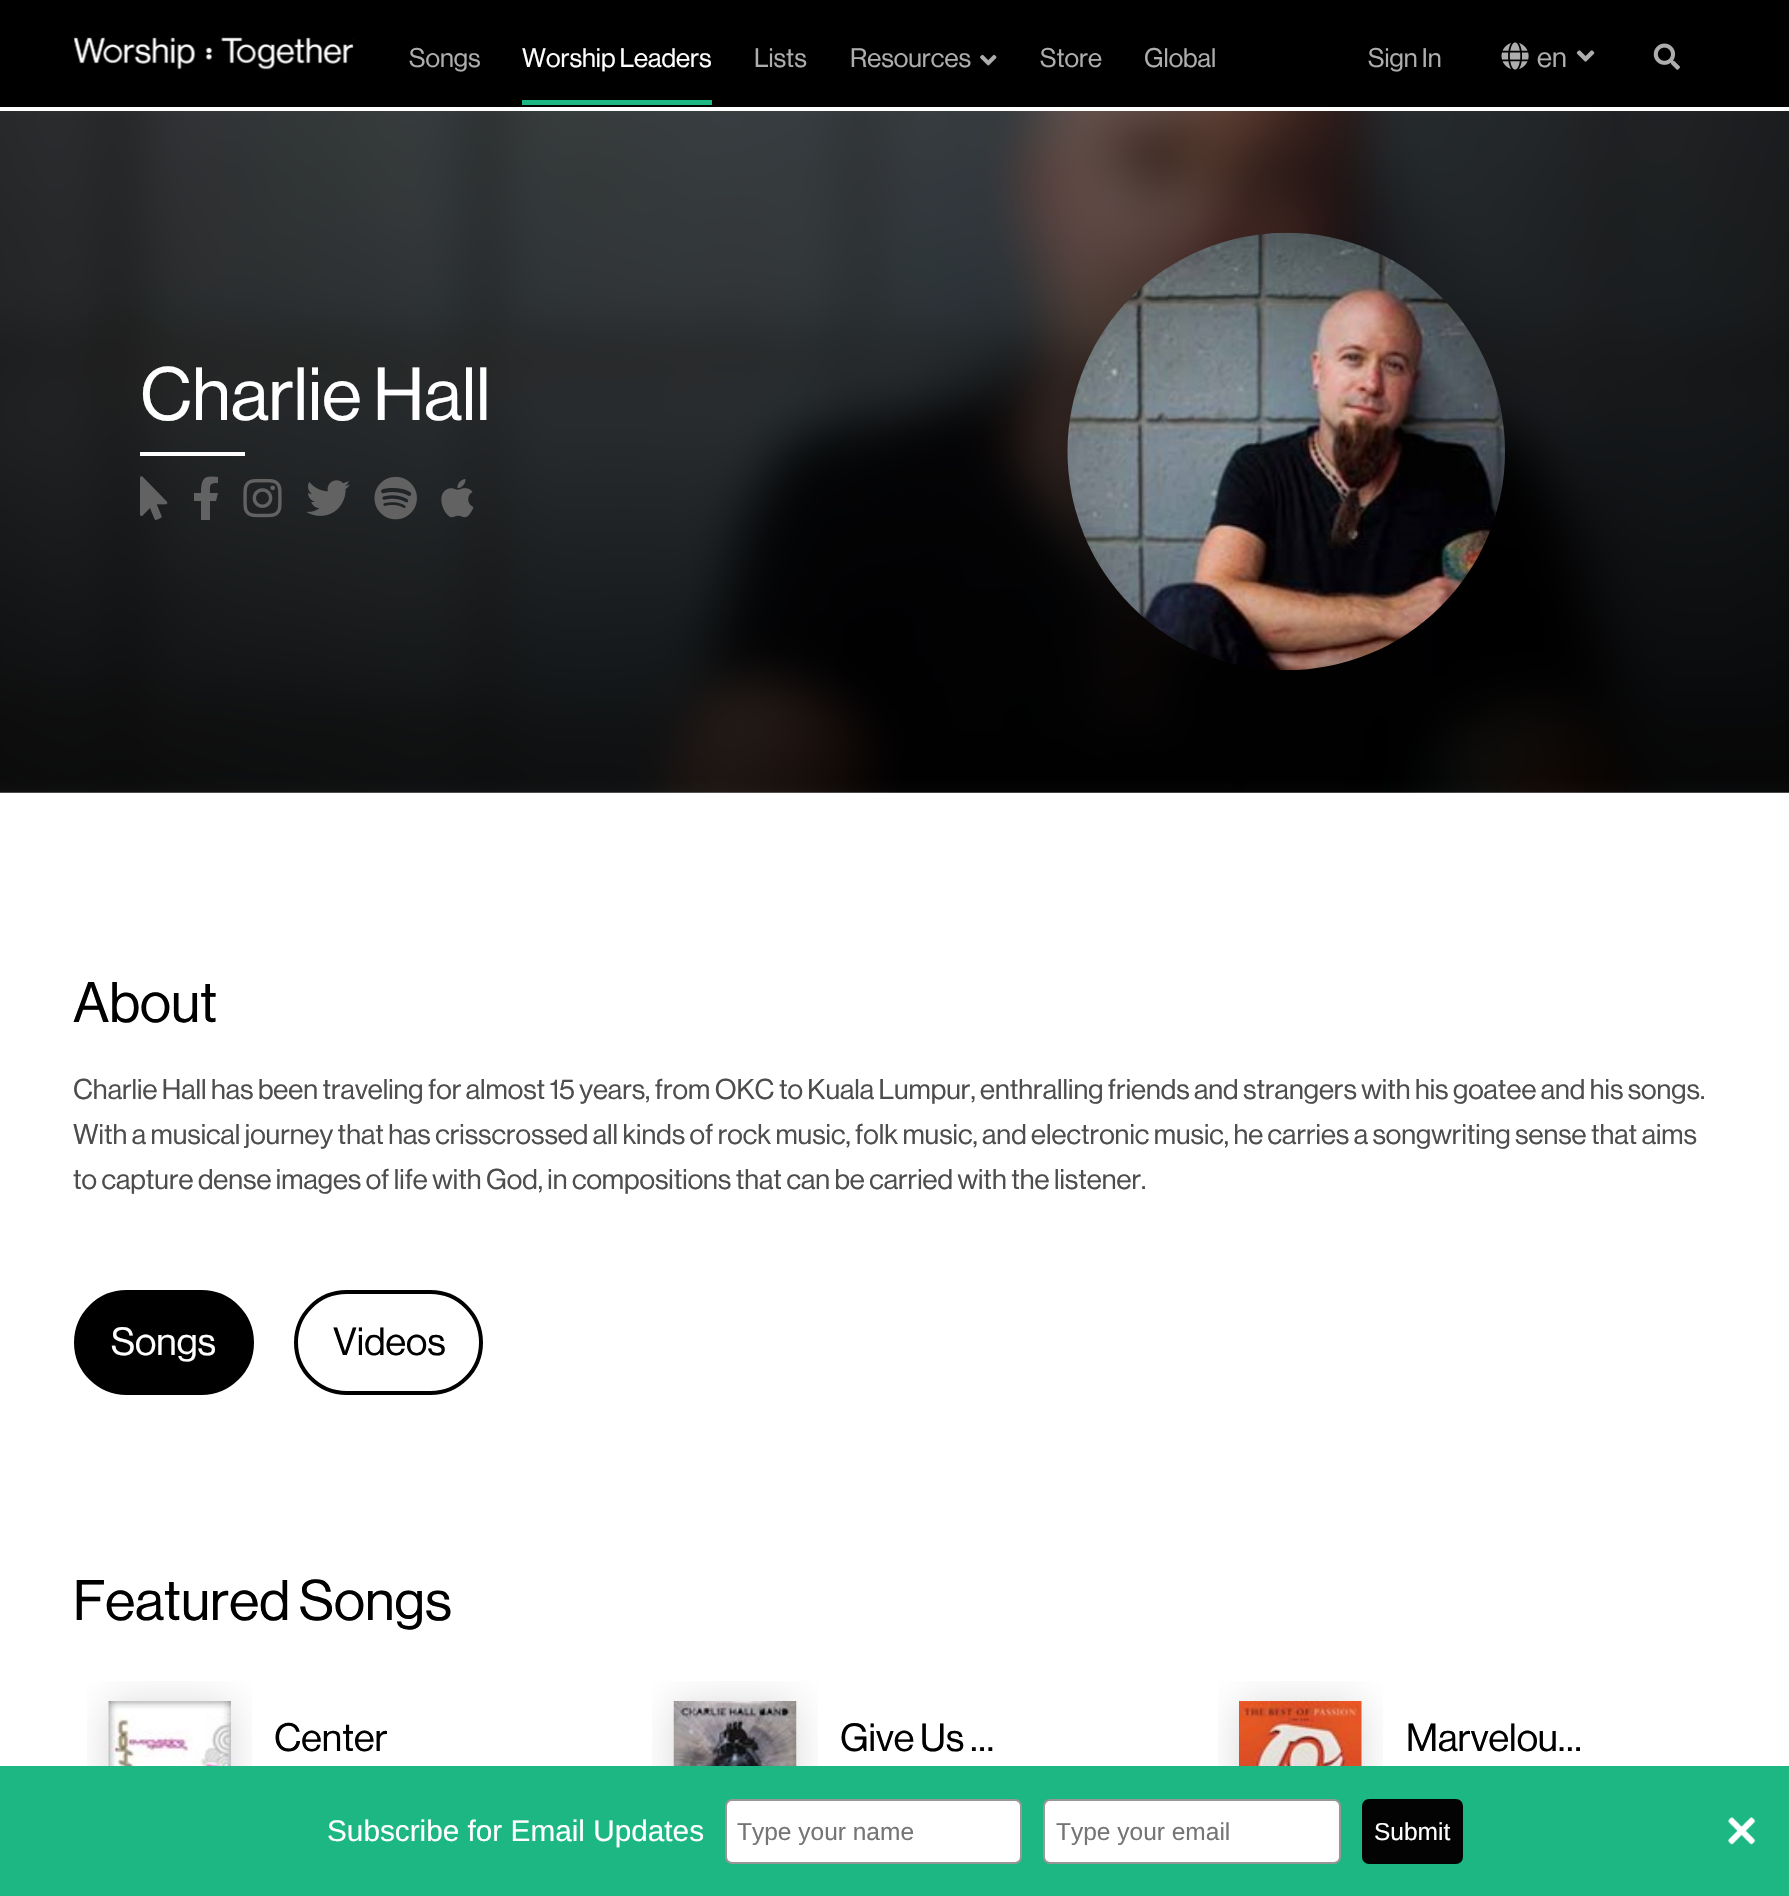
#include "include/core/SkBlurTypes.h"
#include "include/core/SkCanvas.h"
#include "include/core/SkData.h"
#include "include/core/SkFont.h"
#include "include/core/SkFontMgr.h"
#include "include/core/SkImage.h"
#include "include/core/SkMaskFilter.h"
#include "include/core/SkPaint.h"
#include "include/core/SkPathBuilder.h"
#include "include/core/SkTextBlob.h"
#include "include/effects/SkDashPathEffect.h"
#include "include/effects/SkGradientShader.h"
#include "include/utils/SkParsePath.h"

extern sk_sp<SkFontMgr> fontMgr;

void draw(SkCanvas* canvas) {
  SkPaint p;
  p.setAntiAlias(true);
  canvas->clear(SK_ColorWHITE);
  p.setColor(SK_ColorBLACK);
  canvas->drawRect(SkRect::MakeLTRB(0, 0, 1789, 107), p);
  canvas->drawImageRect(SkImages::DeferredFromEncodedData(SkData::MakeFromFileName("images/1.png")), SkRect::MakeLTRB(74, 37, 354, 70), SkSamplingOptions());
  p.setColor(SkColorSetRGB(28, 183, 131));
  canvas->drawRect(SkRect::MakeLTRB(522, 100, 712, 105), p);
  canvas->drawImageRect(SkImages::DeferredFromEncodedData(SkData::MakeFromFileName("images/2.png")), SkRect::MakeLTRB(980, 54, 997, 66), SkSamplingOptions());
  canvas->drawImageRect(SkImages::DeferredFromEncodedData(SkData::MakeFromFileName("images/3.png")), SkRect::MakeLTRB(1501, 42, 1529, 70), SkSamplingOptions());
  canvas->drawImageRect(SkImages::DeferredFromEncodedData(SkData::MakeFromFileName("images/4.png")), SkRect::MakeLTRB(1576, 50, 1595, 62), SkSamplingOptions());
  canvas->drawImageRect(SkImages::DeferredFromEncodedData(SkData::MakeFromFileName("images/5.png")), SkRect::MakeLTRB(1653, 43, 1680, 70), SkSamplingOptions());
  canvas->drawImageRect(SkImages::DeferredFromEncodedData(SkData::MakeFromFileName("images/6.png")), SkRect::MakeLTRB(0, 111, 1789, 793), SkSamplingOptions());
  p.setColor(SK_ColorWHITE);
  canvas->drawRect(SkRect::MakeLTRB(140, 452, 245, 456), p);
  canvas->drawImageRect(SkImages::DeferredFromEncodedData(SkData::MakeFromFileName("images/7.png")), SkRect::MakeLTRB(140, 476, 168, 520), SkSamplingOptions());
  p.setColor(SkColorSetRGB(98, 98, 98));
  canvas->drawPath(SkPathBuilder().moveTo(216, 501).lineTo(210, 501).lineTo(210, 520).lineTo(201, 520).lineTo(201, 501).lineTo(194, 501).lineTo(194, 493).lineTo(201, 493).cubicTo(201, 478, 204, 475, 218, 477).lineTo(218, 483).cubicTo(209, 483, 210, 485, 210, 493).lineTo(218, 493).close().detach(), p);
  canvas->drawImageRect(SkImages::DeferredFromEncodedData(SkData::MakeFromFileName("images/8.png")), SkRect::MakeLTRB(243, 478, 282, 518), SkSamplingOptions());
  canvas->drawImageRect(SkImages::DeferredFromEncodedData(SkData::MakeFromFileName("images/9.png")), SkRect::MakeLTRB(306, 480, 350, 516), SkSamplingOptions());
  canvas->drawImageRect(SkImages::DeferredFromEncodedData(SkData::MakeFromFileName("images/10.png")), SkRect::MakeLTRB(374, 476, 417, 520), SkSamplingOptions());
  canvas->drawImageRect(SkImages::DeferredFromEncodedData(SkData::MakeFromFileName("images/11.png")), SkRect::MakeLTRB(441, 479, 474, 518), SkSamplingOptions());
  canvas->drawImageRect(SkImages::DeferredFromEncodedData(SkData::MakeFromFileName("images/12.png")), SkRect::MakeLTRB(1067, 232, 1505, 671), SkSamplingOptions());
  p.setColor(SK_ColorBLACK);
  canvas->drawRoundRect(SkRect::MakeLTRB(76, 1292, 252, 1393), 50.5f, 50.5f, p);
  p.setStyle(SkPaint::kStroke_Style);
  p.setStrokeWidth(4);
  canvas->drawRoundRect(SkRect::MakeLTRB(76, 1292, 252, 1393), 50.5f, 50.5f, p);
  canvas->drawRoundRect(SkRect::MakeLTRB(296, 1292, 481, 1393), 50.5f, 50.5f, p);
  canvas->drawImageRect(SkImages::DeferredFromEncodedData(SkData::MakeFromFileName("images/13.png")), SkRect::MakeLTRB(87, 1681, 252, 1766), SkSamplingOptions());
  canvas->drawImageRect(SkImages::DeferredFromEncodedData(SkData::MakeFromFileName("images/14.png")), SkRect::MakeLTRB(652, 1681, 818, 1766), SkSamplingOptions());
  canvas->drawImageRect(SkImages::DeferredFromEncodedData(SkData::MakeFromFileName("images/15.png")), SkRect::MakeLTRB(1218, 1681, 1383, 1766), SkSamplingOptions());
  p.setStyle(SkPaint::kFill_Style);
  p.setColor(SkColorSetRGB(28, 183, 131));
  canvas->drawRect(SkRect::MakeLTRB(0, 1766, 1789, 1896), p);
  p.setColor(SK_ColorWHITE);
  canvas->drawRoundRect(SkRect::MakeLTRB(726, 1800, 1021, 1863), 6, 6, p);
  p.setStyle(SkPaint::kStroke_Style);
  p.setStrokeWidth(2);
  p.setColor(SkColorSetRGB(151, 151, 151));
  canvas->drawRoundRect(SkRect::MakeLTRB(726, 1800, 1021, 1863), 6, 6, p);
  p.setStyle(SkPaint::kFill_Style);
  p.setColor(SK_ColorWHITE);
  canvas->drawRoundRect(SkRect::MakeLTRB(1044, 1800, 1340, 1863), 6, 6, p);
  p.setStyle(SkPaint::kStroke_Style);
  p.setColor(SkColorSetRGB(151, 151, 151));
  canvas->drawRoundRect(SkRect::MakeLTRB(1044, 1800, 1340, 1863), 6, 6, p);
  p.setStyle(SkPaint::kFill_Style);
  p.setColor(SkColorSetRGB(3, 3, 3));
  canvas->drawRoundRect(SkRect::MakeLTRB(1362, 1799, 1463, 1864), 7, 7, p);
  canvas->drawImageRect(SkImages::DeferredFromEncodedData(SkData::MakeFromFileName("images/16.png")), SkRect::MakeLTRB(1728, 1817, 1756, 1845), SkSamplingOptions());
  SkFont font1(fontMgr->matchFamilyStyle("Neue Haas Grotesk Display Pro", SkFontStyle(500, SkFontStyle::kNormal_Width, SkFontStyle::kUpright_Slant)), 26.25f);
  font1.setSubpixel(true);
  p.setColor(SkColorSetRGB(173, 173, 173));
  canvas->drawString("Songs", 409, 67, font1, p);
  p.setColor(SK_ColorWHITE);
  canvas->drawString("Worship Leaders", 522, 67, font1, p);
  p.setColor(SkColorSetRGB(173, 173, 173));
  canvas->drawString("Lists", 754, 67, font1, p);
  canvas->drawString("Resources", 850, 67, font1, p);
  canvas->drawString("Store", 1040, 67, font1, p);
  canvas->drawString("Global", 1144, 67, font1, p);
  canvas->drawString("Sign In", 1368, 67, font1, p);
  SkFont font2(fontMgr->matchFamilyStyle("Neue Haas Grotesk Display Pro", SkFontStyle(500, SkFontStyle::kNormal_Width, SkFontStyle::kUpright_Slant)), 28);
  font2.setSubpixel(true);
  canvas->drawString("en", 1537, 67, font2, p);
  SkFont font3(fontMgr->matchFamilyStyle("Neue Haas Grotesk Display Pro", SkFontStyle(500, SkFontStyle::kNormal_Width, SkFontStyle::kUpright_Slant)), 73.5f);
  font3.setSubpixel(true);
  p.setColor(SK_ColorWHITE);
  canvas->drawString("Charlie Hall", 140, 420, font3, p);
  SkFont font4(fontMgr->matchFamilyStyle("Neue Haas Grotesk Display Pro", SkFontStyle(500, SkFontStyle::kNormal_Width, SkFontStyle::kUpright_Slant)), 56);
  font4.setSubpixel(true);
  p.setColor(SK_ColorBLACK);
  canvas->drawString("About", 73, 1022, font4, p);
  p.setColor(SkColorSetRGB(77, 77, 77));
  canvas->drawString("Charlie Hall has been traveling for almost 15 years, from OKC to Kuala Lumpur, enthralling friends and strangers with his goatee and his songs.", 73, 1099, font2, p);
  canvas->drawString("With a musical journey that has crisscrossed all kinds of rock music, folk music, and electronic music, he carries a songwriting sense that aims", 73, 1144, font2, p);
  canvas->drawString("to capture dense images of life with God, in compositions that can be carried with the listener.", 73, 1189, font2, p);
  SkFont font5(fontMgr->matchFamilyStyle("Neue Haas Grotesk Display Pro", SkFontStyle(500, SkFontStyle::kNormal_Width, SkFontStyle::kUpright_Slant)), 38.5f);
  font5.setSubpixel(true);
  p.setColor(SK_ColorWHITE);
  canvas->drawString("Songs", 111, 1355, font5, p);
  p.setColor(SK_ColorBLACK);
  canvas->drawString("Videos", 333, 1355, font5, p);
  canvas->drawString("Featured Songs", 73, 1620, font4, p);
  canvas->drawString("Center", 274, 1751, font5, p);
  canvas->drawString("Give Us …", 840, 1751, font5, p);
  canvas->drawString("Marvelou…", 1406, 1751, font5, p);
  SkFont font6(fontMgr->matchFamilyStyle("Liberation Sans", SkFontStyle::Normal()), 29.75f);
  font6.setSubpixel(true);
  p.setColor(SK_ColorWHITE);
  canvas->drawString("Subscribe for Email Updates", 327, 1841, font6, p);
  SkFont font7(fontMgr->matchFamilyStyle("Liberation Sans", SkFontStyle::Normal()), 24.5f);
  font7.setSubpixel(true);
  p.setColor(SkColorSetRGB(117, 117, 117));
  canvas->drawString("Type your name", 737, 1840, font7, p);
  canvas->save();
  canvas->clipRect(SkRect::MakeLTRB(1055, 1817, 1328, 1845));
  canvas->drawString("Type your email", 1056, 1840, font7, p);
  canvas->restore();
  p.setColor(SK_ColorWHITE);
  canvas->drawString("Submit", 1374, 1840, font7, p);
}
